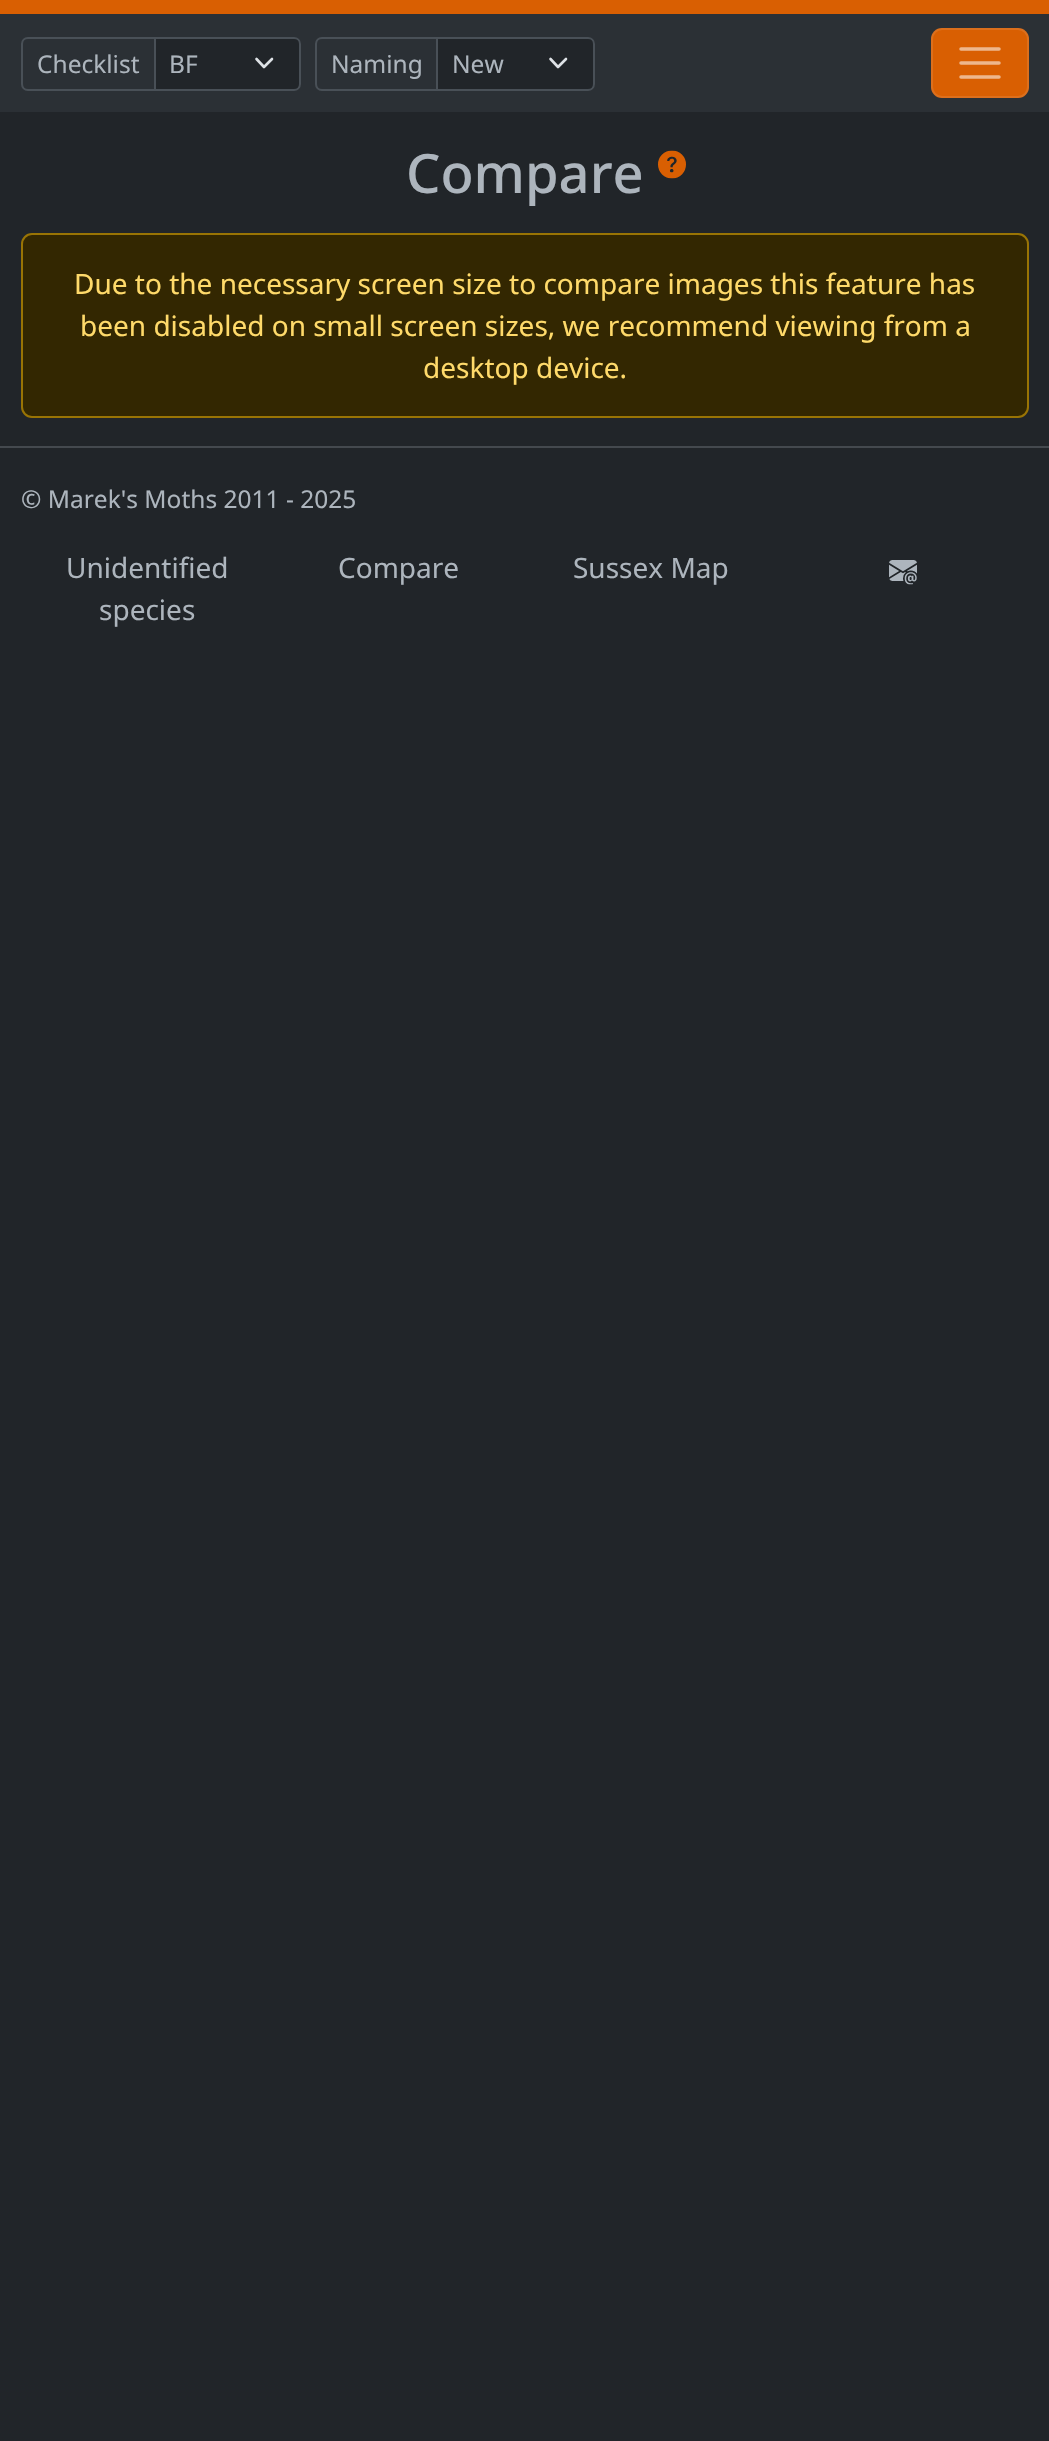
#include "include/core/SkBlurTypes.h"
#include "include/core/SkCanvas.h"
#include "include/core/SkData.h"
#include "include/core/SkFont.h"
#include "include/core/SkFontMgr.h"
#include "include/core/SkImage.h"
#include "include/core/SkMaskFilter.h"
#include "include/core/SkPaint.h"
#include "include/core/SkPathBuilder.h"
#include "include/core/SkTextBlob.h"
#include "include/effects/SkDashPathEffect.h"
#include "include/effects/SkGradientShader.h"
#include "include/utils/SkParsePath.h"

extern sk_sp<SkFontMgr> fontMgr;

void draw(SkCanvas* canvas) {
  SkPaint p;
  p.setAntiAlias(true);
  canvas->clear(SkColorSetRGB(33, 37, 41));
  p.setColor(SkColorSetRGB(43, 48, 53));
  canvas->drawRect(SkRect::MakeLTRB(0, 14, 1049, 112), p);
  p.setColor(SkColorSetRGB(217, 95, 2));
  canvas->drawRect(SkRect::MakeLTRB(0, 0, 1049, 14), p);
  p.setStyle(SkPaint::kStroke_Style);
  p.setStrokeWidth(2);
  p.setColor(SkColorSetRGB(73, 80, 87));
  canvas->drawPath(SkPathBuilder().moveTo(28, 38).lineTo(155, 38).lineTo(155, 90).lineTo(28, 90).cubicTo(24.5f, 90, 22, 87.5f, 22, 84).lineTo(22, 44).cubicTo(22, 40.5f, 24.5f, 38, 28, 38).close().detach(), p);
  p.setStyle(SkPaint::kFill_Style);
  p.setColor(SkColorSetRGB(33, 37, 41));
  canvas->drawPath(SkPathBuilder().moveTo(154, 37).lineTo(294, 37).cubicTo(298, 37, 301, 40, 301, 44).lineTo(301, 84).cubicTo(301, 88, 298, 91, 294, 91).lineTo(154, 91).close().detach(), p);
  p.setStyle(SkPaint::kStroke_Style);
  p.setStrokeWidth(2.6f);
  p.setStrokeCap(SkPaint::kRound_Cap);
  p.setStrokeJoin(SkPaint::kRound_Join);
  p.setColor(SkColorSetRGB(222, 226, 230));
  canvas->drawPath(SkPathBuilder().moveTo(256.5f, 59).lineTo(264, 67).lineTo(272, 59).detach(), p);
  p.setStrokeWidth(2);
  p.setStrokeCap(SkPaint::kButt_Cap);
  p.setStrokeJoin(SkPaint::kMiter_Join);
  p.setColor(SkColorSetRGB(73, 80, 87));
  canvas->drawPath(SkPathBuilder().moveTo(155, 38).lineTo(294, 38).cubicTo(297.5f, 38, 300, 40.5f, 300, 44).lineTo(300, 84).cubicTo(300, 87.5f, 297.5f, 90, 294, 90).lineTo(155, 90).close().detach(), p);
  canvas->drawPath(SkPathBuilder().moveTo(322, 38).lineTo(437, 38).lineTo(437, 90).lineTo(322, 90).cubicTo(318.5f, 90, 316, 87.5f, 316, 84).lineTo(316, 44).cubicTo(316, 40.5f, 318.5f, 38, 322, 38).close().detach(), p);
  p.setStyle(SkPaint::kFill_Style);
  p.setColor(SkColorSetRGB(33, 37, 41));
  canvas->drawPath(SkPathBuilder().moveTo(436, 37).lineTo(588, 37).cubicTo(592, 37, 595, 40, 595, 44).lineTo(595, 84).cubicTo(595, 88, 592, 91, 588, 91).lineTo(436, 91).close().detach(), p);
  p.setStyle(SkPaint::kStroke_Style);
  p.setStrokeWidth(2.6f);
  p.setStrokeCap(SkPaint::kRound_Cap);
  p.setStrokeJoin(SkPaint::kRound_Join);
  p.setColor(SkColorSetRGB(222, 226, 230));
  canvas->drawPath(SkPathBuilder().moveTo(550.5f, 59).lineTo(558, 67).lineTo(566, 59).detach(), p);
  p.setStrokeWidth(2);
  p.setStrokeCap(SkPaint::kButt_Cap);
  p.setStrokeJoin(SkPaint::kMiter_Join);
  p.setColor(SkColorSetRGB(73, 80, 87));
  canvas->drawPath(SkPathBuilder().moveTo(437, 38).lineTo(588, 38).cubicTo(591.5f, 38, 594, 40.5f, 594, 44).lineTo(594, 84).cubicTo(594, 87.5f, 591.5f, 90, 588, 90).lineTo(437, 90).close().detach(), p);
  p.setStyle(SkPaint::kFill_Style);
  p.setColor(SkColorSetRGB(217, 95, 2));
  canvas->drawRoundRect(SkRect::MakeLTRB(931, 28, 1029, 98), 11, 11, p);
  p.setStyle(SkPaint::kStroke_Style);
  p.setColor(SkColorSetARGB(26, 255, 255, 255));
  canvas->drawRoundRect(SkRect::MakeLTRB(932, 29, 1028, 97), 10, 10, p);
  p.setStrokeWidth(3.5f);
  p.setStrokeCap(SkPaint::kRound_Cap);
  p.setColor(SkColorSetRGB(238, 183, 141));
  canvas->drawPath(SkPathBuilder().moveTo(961, 49).lineTo(999, 49).moveTo(961, 63).lineTo(999, 63).moveTo(961, 77).lineTo(999, 77).detach(), p);
  p.setStyle(SkPaint::kFill_Style);
  p.setColor(SkColorSetRGB(68, 73, 78));
  canvas->drawRect(SkRect::MakeLTRB(0, 446, 1049, 448), p);
  canvas->drawImageRect(SkImages::DeferredFromEncodedData(SkData::MakeFromFileName("images/1.png")), SkRect::MakeLTRB(658, 150, 686, 179), SkSamplingOptions());
  p.setColor(SkColorSetRGB(51, 39, 1));
  canvas->drawRoundRect(SkRect::MakeLTRB(22, 234, 1028, 417), 10, 10, p);
  p.setStyle(SkPaint::kStroke_Style);
  p.setStrokeWidth(2);
  p.setStrokeCap(SkPaint::kButt_Cap);
  p.setColor(SkColorSetRGB(153, 116, 4));
  canvas->drawRoundRect(SkRect::MakeLTRB(22, 234, 1028, 417), 10, 10, p);
  canvas->drawImageRect(SkImages::DeferredFromEncodedData(SkData::MakeFromFileName("images/2.png")), SkRect::MakeLTRB(889, 560, 917, 585), SkSamplingOptions());
  SkFont font1(fontMgr->matchFamilyStyle("Noto Sans", SkFontStyle::Normal()), 24.5f);
  font1.setSubpixel(true);
  p.setStyle(SkPaint::kFill_Style);
  p.setColor(SkColorSetRGB(173, 181, 189));
  canvas->drawString("Checklist", 37, 73, font1, p);
  canvas->drawString("BF", 169, 73, font1, p);
  canvas->drawString("Naming", 331, 73, font1, p);
  canvas->drawString("New", 452, 73, font1, p);
  SkFont font2(fontMgr->matchFamilyStyle("Noto Sans", SkFontStyle(500, SkFontStyle::kNormal_Width, SkFontStyle::kUpright_Slant)), 54.25f);
  font2.setSubpixel(true);
  canvas->drawString("Compare", 406, 193, font2, p);
  SkFont font3(fontMgr->matchFamilyStyle("Noto Sans", SkFontStyle::Normal()), 28);
  font3.setSubpixel(true);
  p.setColor(SkColorSetRGB(255, 218, 106));
  canvas->drawString("Due to the necessary screen size to compare images this feature has", 74, 294, font3, p);
  canvas->drawString("been disabled on small screen sizes, we recommend viewing from a", 80, 336, font3, p);
  canvas->drawString("desktop device.", 423, 378, font3, p);
  p.setColor(SkColorSetRGB(173, 181, 189));
  canvas->drawString("© Marek's Moths 2011 - 2025", 21, 508, font1, p);
  canvas->drawString("Unidentified", 66, 578, font3, p);
  canvas->drawString("species", 99, 620, font3, p);
  canvas->drawString("Compare", 338, 578, font3, p);
  canvas->drawString("Sussex Map", 573, 578, font3, p);
}
